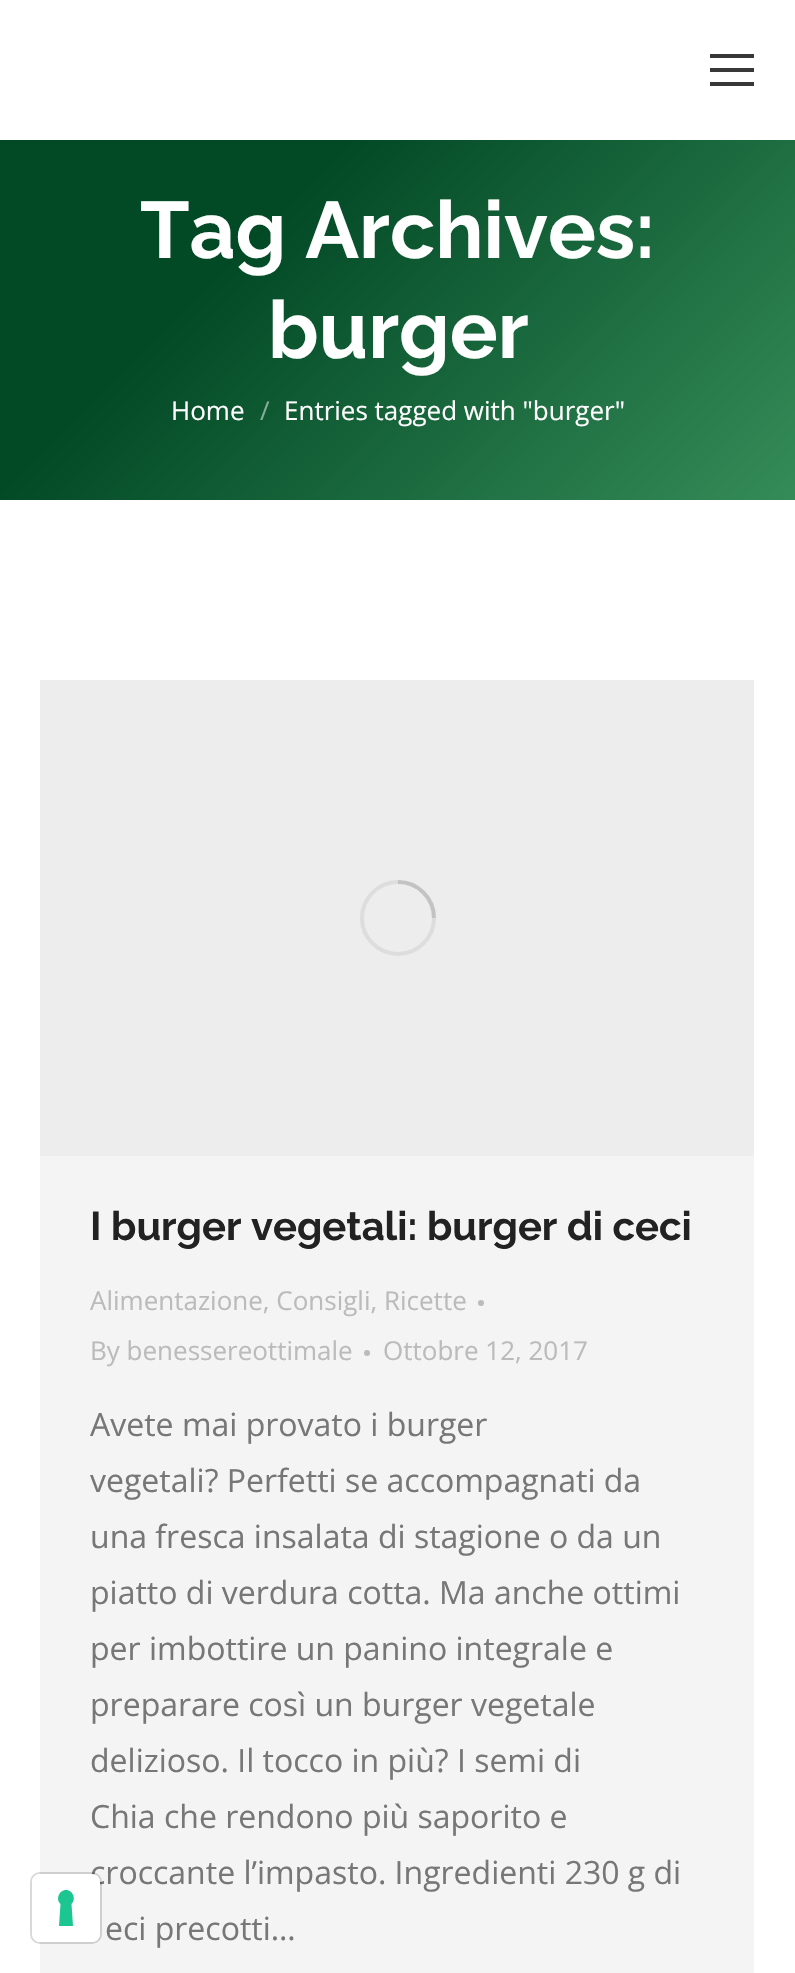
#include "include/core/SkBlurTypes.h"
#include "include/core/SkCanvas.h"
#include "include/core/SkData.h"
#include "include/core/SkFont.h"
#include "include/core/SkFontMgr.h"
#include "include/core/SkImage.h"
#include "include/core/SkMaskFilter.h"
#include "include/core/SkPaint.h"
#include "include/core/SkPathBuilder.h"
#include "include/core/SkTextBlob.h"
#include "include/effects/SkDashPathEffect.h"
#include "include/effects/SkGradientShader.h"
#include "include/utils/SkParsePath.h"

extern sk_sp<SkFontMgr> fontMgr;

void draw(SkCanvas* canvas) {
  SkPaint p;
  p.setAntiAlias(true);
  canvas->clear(SK_ColorWHITE);
  p.setColor(SkColorSetRGB(56, 56, 56));
  canvas->drawRect(SkRect::MakeLTRB(710, 54, 754, 58), p);
  canvas->drawRect(SkRect::MakeLTRB(710, 68, 754, 72), p);
  canvas->drawRect(SkRect::MakeLTRB(710, 82, 754, 86), p);
  {
    const SkColor colors[] = {SkColorSetRGB(2, 73, 38), SkColorSetRGB(53, 140, 88)};
    const float stops[] = {0.3f, 1};
    const SkPoint ends[] = {{109, 31}, {687, 609}};
    p.setShader(SkGradientShader::MakeLinear(ends, colors, stops, 2, SkTileMode::kClamp));
    p.setAlpha(255);
  }
  canvas->drawRect(SkRect::MakeLTRB(0, 140, 795, 500), p);
  p.setShader(nullptr);
  p.setColor(SkColorSetRGB(244, 244, 244));
  canvas->drawRect(SkRect::MakeLTRB(40, 1156, 754, 1973), p);
  p.setColor(SkColorSetRGB(237, 237, 237));
  canvas->drawRect(SkRect::MakeLTRB(40, 680, 754, 1156), p);
  p.setStyle(SkPaint::kStroke_Style);
  p.setStrokeWidth(4);
  p.setColor(SkColorSetRGB(221, 221, 221));
  canvas->drawCircle(398, 918, 36, p);
  p.setColor(SkColorSetARGB(64, 119, 119, 119));
  canvas->drawPath(SkPathBuilder().moveTo(434, 918).cubicTo(434, 898, 418, 882, 398, 882).detach(), p);
  p.setStyle(SkPaint::kFill_Style);
  p.setColor(SkColorSetRGB(187, 187, 187));
  canvas->drawCircle(481, 1303, 3, p);
  canvas->drawCircle(367, 1353, 3, p);
  SkFont font1(fontMgr->matchFamilyStyle("Raleway", SkFontStyle::Bold()), 80);
  font1.setSubpixel(true);
  p.setColor(SK_ColorWHITE);
  canvas->drawString("Tag Archives:", 140, 258, font1, p);
  canvas->drawString("burger", 268, 358, font1, p);
  SkFont font2(fontMgr->matchFamilyStyle("Open Sans", SkFontStyle::Normal()), 26);
  font2.setSubpixel(true);
  canvas->drawString("Home", 171, 420, font2, p);
  p.setColor(SkColorSetRGB(134, 172, 152));
  canvas->drawString("/", 260, 420, font2, p);
  p.setColor(SK_ColorWHITE);
  canvas->drawString("Entries tagged with \"burger\"", 284, 420, font2, p);
  SkFont font3(fontMgr->matchFamilyStyle("Raleway", SkFontStyle::Bold()), 40);
  font3.setSubpixel(true);
  p.setColor(SkColorSetRGB(34, 34, 34));
  canvas->drawString("I burger vegetali: burger di ceci", 90, 1240, font3, p);
  p.setColor(SkColorSetRGB(187, 187, 187));
  canvas->drawString("Alimentazione, Consigli, Ricette", 90, 1310, font2, p);
  canvas->drawString("By benessereottimale", 90, 1360, font2, p);
  canvas->drawString("Ottobre 12, 2017", 383, 1360, font2, p);
  SkFont font4(fontMgr->matchFamilyStyle("Open Sans", SkFontStyle::Normal()), 32);
  font4.setSubpixel(true);
  p.setColor(SkColorSetRGB(119, 119, 119));
  canvas->drawString("Avete mai provato i burger", 90, 1436, font4, p);
  canvas->drawString("vegetali? Perfetti se accompagnati da", 90, 1492, font4, p);
  canvas->drawString("una fresca insalata di stagione o da un", 90, 1548, font4, p);
  canvas->drawString("piatto di verdura cotta. Ma anche ottimi", 90, 1604, font4, p);
  canvas->drawString("per imbottire un panino integrale e", 90, 1660, font4, p);
  canvas->drawString("preparare così un burger vegetale", 90, 1716, font4, p);
  canvas->drawString("delizioso. Il tocco in più? I semi di", 90, 1772, font4, p);
  canvas->drawString("Chia che rendono più saporito e", 90, 1828, font4, p);
  canvas->drawString("croccante l’impasto. Ingredienti 230 g di", 90, 1884, font4, p);
  p.setStyle(SkPaint::kStroke_Style);
  p.setStrokeWidth(2);
  p.setColor(SkColorSetARGB(38, 0, 0, 0));
  canvas->drawRoundRect(SkRect::MakeLTRB(31, 1873, 101, 1943), 9, 9, p);
  p.setStyle(SkPaint::kFill_Style);
  p.setColor(SK_ColorWHITE);
  canvas->drawRoundRect(SkRect::MakeLTRB(32, 1874, 100, 1942), 8, 8, p);
  p.setColor(SkColorSetRGB(28, 198, 145));
  canvas->drawPath(SkPathBuilder(SkPathFillType::kEvenOdd).moveTo(66, 1890).cubicTo(73, 1890, 76.5f, 1899.5f, 71.5f, 1904).lineTo(73, 1926).lineTo(59, 1926).lineTo(60.5f, 1904).cubicTo(55.5f, 1899.5f, 59, 1890, 66, 1890).close().detach(), p);
  p.setColor(SkColorSetRGB(119, 119, 119));
  canvas->drawString("eci precotti…", 105, 1940, font4, p);
}
